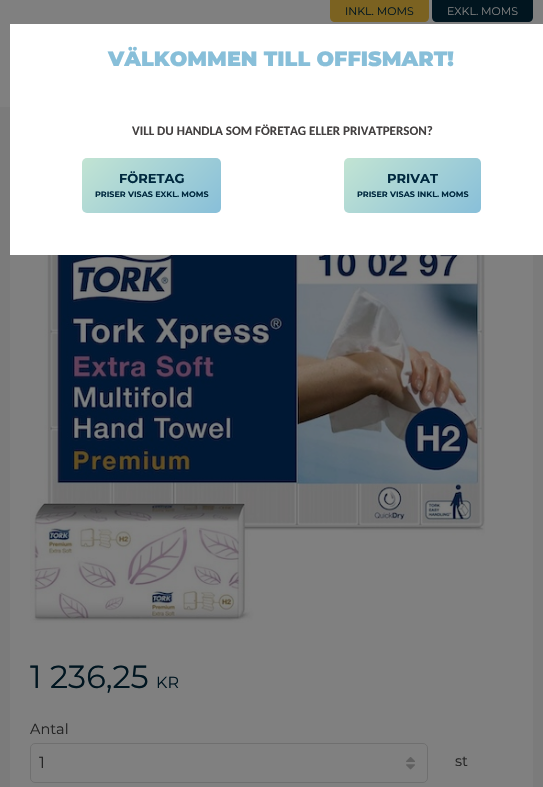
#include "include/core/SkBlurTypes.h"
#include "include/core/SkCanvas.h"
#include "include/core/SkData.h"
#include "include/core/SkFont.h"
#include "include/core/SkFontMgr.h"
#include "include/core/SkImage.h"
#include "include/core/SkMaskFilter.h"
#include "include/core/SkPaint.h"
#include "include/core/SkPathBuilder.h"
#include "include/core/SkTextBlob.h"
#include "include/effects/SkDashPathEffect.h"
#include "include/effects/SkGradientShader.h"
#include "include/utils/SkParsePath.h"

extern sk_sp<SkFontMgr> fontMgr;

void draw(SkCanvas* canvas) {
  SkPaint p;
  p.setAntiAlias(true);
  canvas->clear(SkColorSetRGB(123, 123, 123));
  p.setColor(SkColorSetRGB(128, 128, 128));
  canvas->drawRect(SkRect::MakeLTRB(0, 0, 543, 107), p);
  p.setColor(SkColorSetRGB(123, 98, 33));
  canvas->drawPath(SkPathBuilder().moveTo(330, 0).lineTo(429, 0).lineTo(429, 17).cubicTo(429, 20, 427, 22, 424, 22).lineTo(335, 22).cubicTo(332, 22, 330, 20, 330, 17).close().detach(), p);
  p.setColor(SkColorSetRGB(1, 21, 31));
  canvas->drawPath(SkPathBuilder().moveTo(432, 0).lineTo(533, 0).lineTo(533, 17).cubicTo(533, 20, 531, 22, 528, 22).lineTo(437, 22).cubicTo(434, 22, 432, 20, 432, 17).close().detach(), p);
  p.setColor(SK_ColorWHITE);
  canvas->drawRect(SkRect::MakeLTRB(10, 24, 543, 255), p);
  {
    const SkColor colors[] = {SkColorSetRGB(194, 228, 211), SkColorSetRGB(136, 191, 217)};
    const float stops[] = {0, 1};
    const SkPoint ends[] = {{103, 137}, {200, 234}};
    p.setShader(SkGradientShader::MakeLinear(ends, colors, stops, 2, SkTileMode::kClamp));
    p.setAlpha(255);
  }
  canvas->drawRoundRect(SkRect::MakeLTRB(82, 158, 221, 213), 5, 5, p);
  {
    const SkColor colors[] = {SkColorSetRGB(194, 228, 211), SkColorSetRGB(136, 191, 217)};
    const float stops[] = {0, 1};
    const SkPoint ends[] = {{365, 138}, {461, 234}};
    p.setShader(SkGradientShader::MakeLinear(ends, colors, stops, 2, SkTileMode::kClamp));
    p.setAlpha(255);
  }
  canvas->drawRoundRect(SkRect::MakeLTRB(344, 158, 481, 213), 5, 5, p);
  p.setShader(nullptr);
  p.setColor(SkColorSetRGB(128, 128, 128));
  canvas->drawRect(SkRect::MakeLTRB(10, 255, 533, 787), p);
  canvas->drawImageRect(SkImages::DeferredFromEncodedData(SkData::MakeFromFileName("images/1.png")), SkRect::MakeLTRB(30, 255, 485, 623), SkSamplingOptions());
  p.setStyle(SkPaint::kStroke_Style);
  p.setStrokeWidth(1);
  p.setColor(SkColorSetRGB(111, 111, 111));
  canvas->drawRoundRect(SkRect::MakeLTRB(30.5f, 743.5f, 427.5f, 782.5f), 4.5f, 4.5f, p);
  canvas->drawImageRect(SkImages::DeferredFromEncodedData(SkData::MakeFromFileName("images/2.png")), SkRect::MakeLTRB(406, 757, 415, 770), SkSamplingOptions());
  SkFont font1(fontMgr->matchFamilyStyle("Montserrat", SkFontStyle::Normal()), 11);
  font1.setSubpixel(true);
  p.setStyle(SkPaint::kFill_Style);
  p.setColor(SkColorSetRGB(0, 21, 32));
  canvas->drawString("INKL. MOMS", 345, 15, font1, p);
  p.setColor(SkColorSetRGB(128, 128, 128));
  canvas->drawString("EXKL. MOMS", 447, 15, font1, p);
  SkFont font2(fontMgr->matchFamilyStyle("Montserrat", SkFontStyle(900, SkFontStyle::kNormal_Width, SkFontStyle::kUpright_Slant)), 20.75f);
  font2.setSubpixel(true);
  p.setColor(SkColorSetRGB(136, 191, 217));
  canvas->drawString("VÄLKOMMEN TILL OFFISMART!", 108, 66, font2, p);
  SkFont font3(fontMgr->matchFamilyStyle("Carlito", SkFontStyle::Bold()), 13);
  font3.setSubpixel(true);
  p.setColor(SkColorSetRGB(68, 65, 65));
  canvas->drawString("VILL DU HANDLA SOM FÖRETAG ELLER PRIVATPERSON?", 132, 135, font3, p);
  SkFont font4(fontMgr->matchFamilyStyle("Montserrat", SkFontStyle::Bold()), 13);
  font4.setSubpixel(true);
  p.setColor(SkColorSetRGB(0, 41, 63));
  canvas->drawString("FÖRETAG", 119, 183, font4, p);
  SkFont font5(fontMgr->matchFamilyStyle("Montserrat", SkFontStyle::Bold()), 8);
  font5.setSubpixel(true);
  canvas->drawString("PRISER VISAS EXKL. MOMS", 95, 197, font5, p);
  canvas->drawString("PRIVAT", 387, 183, font4, p);
  canvas->drawString("PRISER VISAS INKL. MOMS", 357, 197, font5, p);
  SkFont font6(fontMgr->matchFamilyStyle("Montserrat", SkFontStyle::Normal()), 32);
  font6.setSubpixel(true);
  p.setColor(SkColorSetRGB(0, 21, 32));
  canvas->drawString("1 236,25", 30, 688, font6, p);
  SkFont font7(fontMgr->matchFamilyStyle("Montserrat", SkFontStyle::Normal()), 16);
  font7.setSubpixel(true);
  canvas->drawString("KR", 156, 688, font7, p);
  SkFont font8(fontMgr->matchFamilyStyle("Montserrat", SkFontStyle::Normal()), 14.5f);
  font8.setSubpixel(true);
  p.setColor(SkColorSetRGB(34, 34, 34));
  canvas->drawString("Antal", 30, 734, font8, p);
  canvas->drawString("1", 39, 768, font7, p);
  canvas->drawString("st", 455, 766, font8, p);
}
